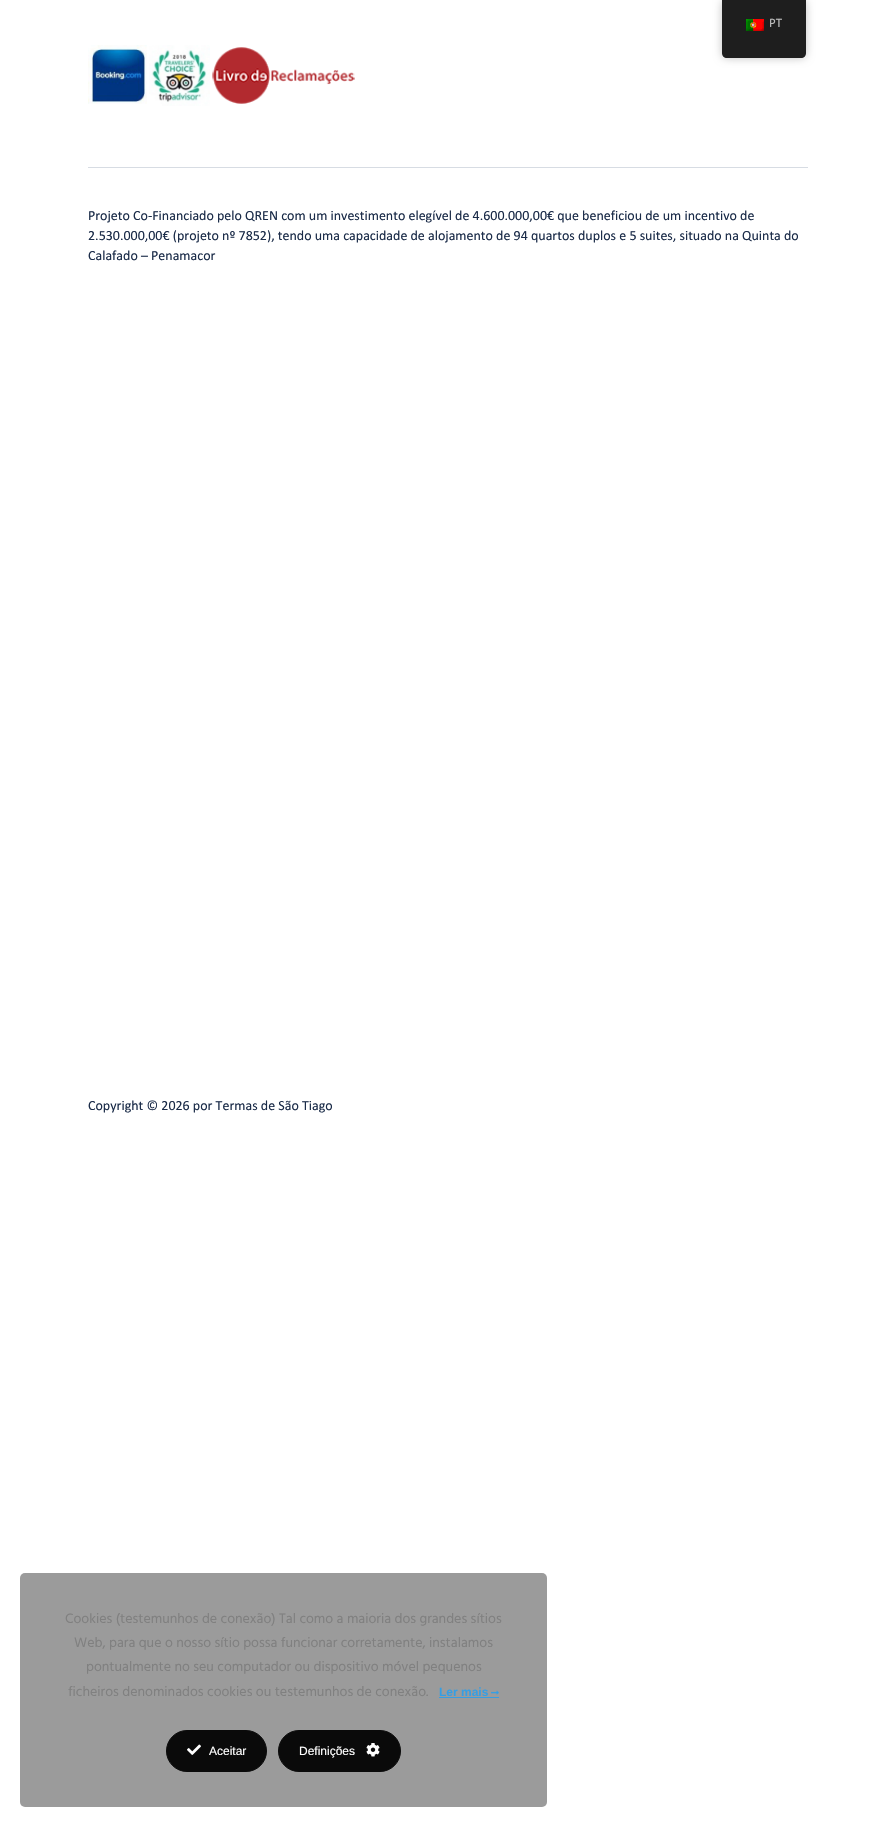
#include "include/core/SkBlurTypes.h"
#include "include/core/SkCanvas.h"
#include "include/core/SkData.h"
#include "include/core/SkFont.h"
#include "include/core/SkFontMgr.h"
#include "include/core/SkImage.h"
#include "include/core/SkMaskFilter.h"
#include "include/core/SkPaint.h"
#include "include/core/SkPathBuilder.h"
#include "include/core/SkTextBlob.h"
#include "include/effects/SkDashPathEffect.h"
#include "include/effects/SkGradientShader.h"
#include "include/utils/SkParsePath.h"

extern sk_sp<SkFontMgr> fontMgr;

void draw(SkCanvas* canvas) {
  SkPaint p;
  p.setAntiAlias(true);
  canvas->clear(SK_ColorWHITE);
  p.setColor(SkColorSetARGB(64, 0, 0, 0));
  p.setMaskFilter(SkMaskFilter::MakeBlur(kNormal_SkBlurStyle, 4));
  canvas->drawRoundRect(SkRect::MakeLTRB(722, 0, 806, 58), 5, 5, p);
  p.setMaskFilter(nullptr);
  p.setColor(SkColorSetRGB(30, 30, 30));
  canvas->drawPath(SkPathBuilder().moveTo(722, 0).lineTo(806, 0).lineTo(806, 53).cubicTo(806, 56, 804, 58, 801, 58).lineTo(727, 58).cubicTo(724, 58, 722, 56, 722, 53).close().detach(), p);
  canvas->drawImageRect(SkImages::DeferredFromEncodedData(SkData::MakeFromFileName("images/1.png")), SkRect::MakeLTRB(746, 19, 764, 31), SkSamplingOptions());
  canvas->drawImageRect(SkImages::DeferredFromEncodedData(SkData::MakeFromFileName("images/2.png")), SkRect::MakeLTRB(88, 45, 147, 104), SkSamplingOptions());
  canvas->drawImageRect(SkImages::DeferredFromEncodedData(SkData::MakeFromFileName("images/3.png")), SkRect::MakeLTRB(149, 45, 210, 106), SkSamplingOptions());
  canvas->drawImageRect(SkImages::DeferredFromEncodedData(SkData::MakeFromFileName("images/4.png")), SkRect::MakeLTRB(212, 47, 355, 104), SkSamplingOptions());
  p.setColor(SkColorSetRGB(215, 220, 227));
  canvas->drawRect(SkRect::MakeLTRB(88, 167, 808, 168), p);
  p.setColor(SkColorSetRGB(155, 155, 155));
  canvas->drawRoundRect(SkRect::MakeLTRB(20, 1573, 547, 1807), 5, 5, p);
  p.setColor(SkColorSetRGB(54, 158, 227));
  canvas->drawRect(SkRect::MakeLTRB(439, 1697, 499, 1698), p);
  canvas->drawImageRect(SkImages::DeferredFromEncodedData(SkData::MakeFromFileName("images/5.png")), SkRect::MakeLTRB(491, 1690, 499, 1695), SkSamplingOptions());
  p.setColor(SkColorSetRGB(10, 10, 10));
  canvas->drawRoundRect(SkRect::MakeLTRB(166.5f, 1730.5f, 266.5f, 1771.5f), 20.5f, 20.5f, p);
  p.setStyle(SkPaint::kStroke_Style);
  p.setStrokeWidth(1);
  canvas->drawRoundRect(SkRect::MakeLTRB(166.5f, 1730.5f, 266.5f, 1771.5f), 20.5f, 20.5f, p);
  canvas->drawImageRect(SkImages::DeferredFromEncodedData(SkData::MakeFromFileName("images/6.png")), SkRect::MakeLTRB(187, 1744, 201, 1755), SkSamplingOptions());
  p.setStyle(SkPaint::kFill_Style);
  canvas->drawRoundRect(SkRect::MakeLTRB(278.5f, 1730.5f, 400.5f, 1771.5f), 20.5f, 20.5f, p);
  p.setStyle(SkPaint::kStroke_Style);
  canvas->drawRoundRect(SkRect::MakeLTRB(278.5f, 1730.5f, 400.5f, 1771.5f), 20.5f, 20.5f, p);
  canvas->drawImageRect(SkImages::DeferredFromEncodedData(SkData::MakeFromFileName("images/7.png")), SkRect::MakeLTRB(366, 1743, 380, 1757), SkSamplingOptions());
  SkFont font1(fontMgr->matchFamilyStyle("Calibri", SkFontStyle::Normal()), 13);
  font1.setSubpixel(true);
  p.setStyle(SkPaint::kFill_Style);
  p.setColor(SkColorSetRGB(189, 189, 189));
  canvas->drawString("PT", 769, 27, font1, p);
  SkFont font2(fontMgr->matchFamilyStyle("Calibri", SkFontStyle::Normal()), 14);
  font2.setSubpixel(true);
  p.setColor(SkColorSetRGB(26, 43, 72));
  canvas->drawString("Projeto Co-Financiado pelo QREN com um investimento elegível de 4.600.000,00€ que beneficiou de um incentivo de", 88, 220, font2, p);
  canvas->drawString("2.530.000,00€ (projeto nº 7852), tendo uma capacidade de alojamento de 94 quartos duplos e 5 suites, situado na Quinta do", 88, 240, font2, p);
  canvas->drawString("Calafado – Penamacor", 88, 260, font2, p);
  canvas->drawString("Copyright © 2026 por Termas de São Tiago", 88, 1110, font2, p);
  SkFont font3(fontMgr->matchFamilyStyle("Hind", SkFontStyle::Normal()), 14);
  font3.setSubpixel(true);
  p.setColor(SkColorSetRGB(128, 128, 128));
  canvas->drawString("Cookies (testemunhos de conexão) Tal como a maioria dos grandes sítios", 65, 1623, font3, p);
  canvas->drawString("Web, para que o nosso sítio possa funcionar corretamente, instalamos", 74, 1647, font3, p);
  canvas->drawString("pontualmente no seu computador ou dispositivo móvel pequenos", 86, 1671, font3, p);
  canvas->drawString("ficheiros denominados cookies ou testemunhos de conexão.", 68, 1696, font3, p);
  SkFont font4(fontMgr->matchFamilyStyle("Liberation Sans", SkFontStyle::Bold()), 12);
  font4.setSubpixel(true);
  p.setColor(SkColorSetRGB(54, 158, 227));
  canvas->drawString("Ler mais", 439, 1696, font4, p);
  SkFont font5(fontMgr->matchFamilyStyle("Liberation Sans", SkFontStyle::Normal()), 12);
  font5.setSubpixel(true);
  p.setColor(SK_ColorWHITE);
  canvas->drawString("Aceitar", 209, 1755, font5, p);
  canvas->drawString("Definições", 299, 1755, font5, p);
}
